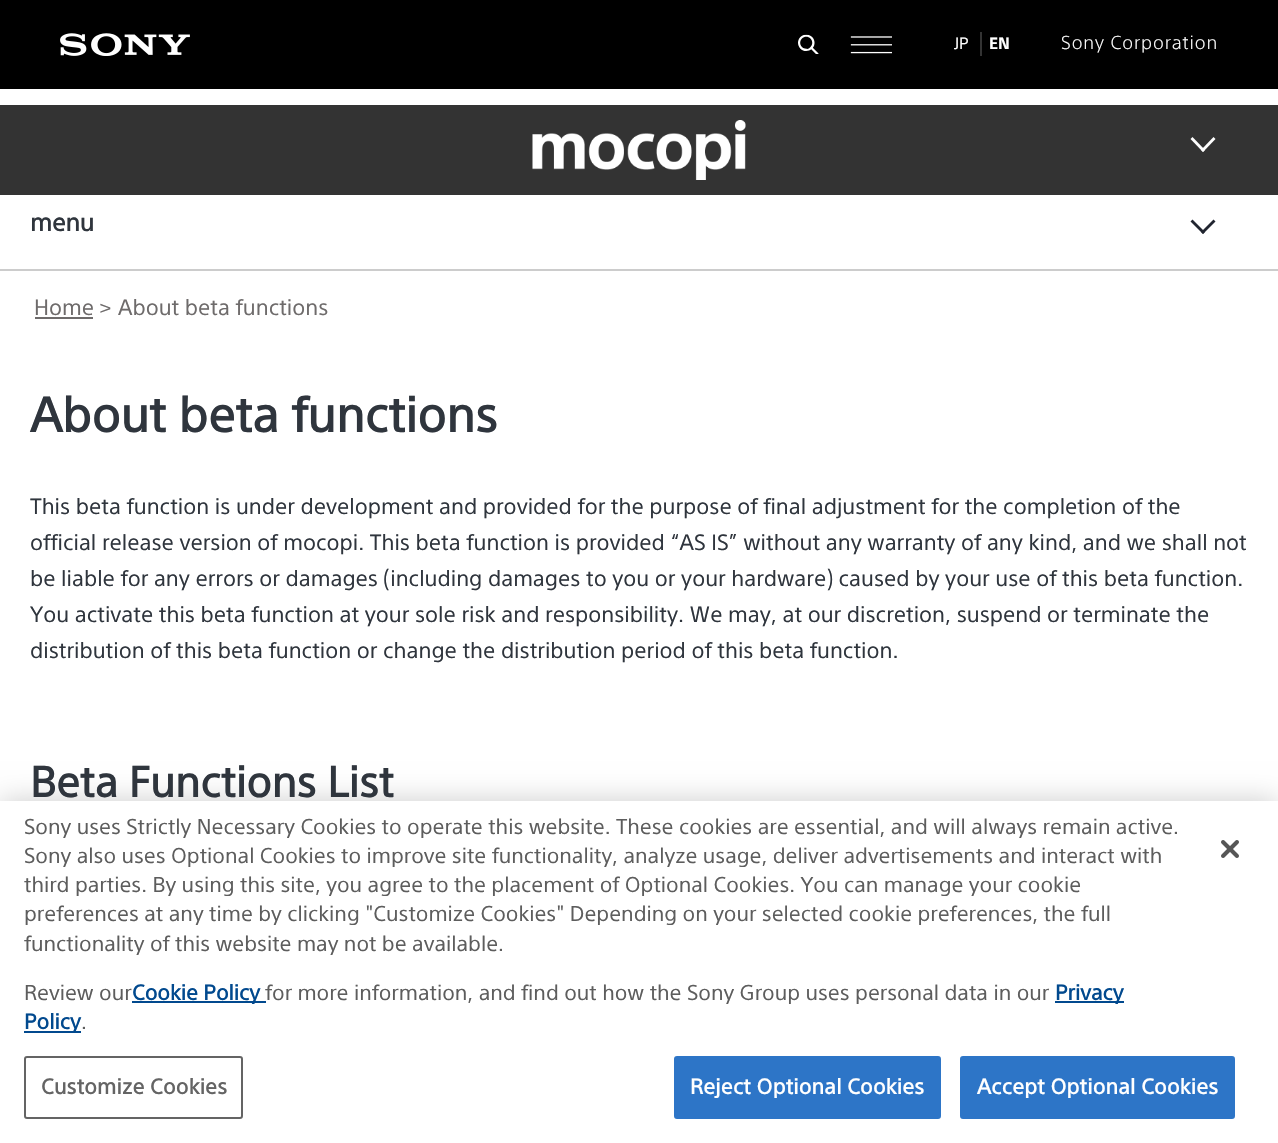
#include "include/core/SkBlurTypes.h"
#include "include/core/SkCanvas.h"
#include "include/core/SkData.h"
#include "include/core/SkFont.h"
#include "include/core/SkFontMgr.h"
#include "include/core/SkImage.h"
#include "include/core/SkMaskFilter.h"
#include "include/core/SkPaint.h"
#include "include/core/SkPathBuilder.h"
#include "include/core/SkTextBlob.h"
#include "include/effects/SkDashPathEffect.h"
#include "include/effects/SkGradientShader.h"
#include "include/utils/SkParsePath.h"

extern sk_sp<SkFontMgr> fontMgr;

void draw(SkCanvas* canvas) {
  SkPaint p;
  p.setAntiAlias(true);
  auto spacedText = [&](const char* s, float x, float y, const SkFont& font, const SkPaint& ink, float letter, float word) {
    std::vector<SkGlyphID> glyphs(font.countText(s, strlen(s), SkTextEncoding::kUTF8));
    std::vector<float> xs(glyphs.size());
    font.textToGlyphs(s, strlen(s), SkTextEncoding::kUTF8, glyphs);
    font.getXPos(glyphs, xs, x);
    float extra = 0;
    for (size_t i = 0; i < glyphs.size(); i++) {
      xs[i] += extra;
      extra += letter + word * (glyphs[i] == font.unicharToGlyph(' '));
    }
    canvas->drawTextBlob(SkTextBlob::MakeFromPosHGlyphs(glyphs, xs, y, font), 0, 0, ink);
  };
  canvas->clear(SK_ColorWHITE);
  p.setColor(SK_ColorBLACK);
  canvas->drawRect(SkRect::MakeLTRB(0, 0, 1278, 89), p);
  canvas->drawImageRect(SkImages::DeferredFromEncodedData(SkData::MakeFromFileName("images/1.png")), SkRect::MakeLTRB(60, 33, 190, 56), SkSamplingOptions());
  canvas->drawImageRect(SkImages::DeferredFromEncodedData(SkData::MakeFromFileName("images/2.png")), SkRect::MakeLTRB(798, 34, 819, 54), SkSamplingOptions());
  canvas->drawImageRect(SkImages::DeferredFromEncodedData(SkData::MakeFromFileName("images/3.png")), SkRect::MakeLTRB(850, 36, 892, 54), SkSamplingOptions());
  p.setColor(SkColorSetRGB(51, 51, 51));
  canvas->drawRect(SkRect::MakeLTRB(980, 32, 982, 56), p);
  canvas->drawRect(SkRect::MakeLTRB(0, 105, 1278, 195), p);
  canvas->drawImageRect(SkImages::DeferredFromEncodedData(SkData::MakeFromFileName("images/4.png")), SkRect::MakeLTRB(532, 120, 746, 180), SkSamplingOptions());
  p.setColor(SK_ColorWHITE);
  canvas->drawPath(SkPathBuilder().moveTo(1215.5f, 139).lineTo(1203, 152).lineTo(1201, 150).lineTo(1213.5f, 137).close().detach(), p);
  canvas->drawPath(SkPathBuilder().moveTo(1205, 150).lineTo(1203, 152).lineTo(1190.5f, 139).lineTo(1192.5f, 137).close().detach(), p);
  p.setColor(SkColorSetRGB(204, 204, 204));
  canvas->drawRect(SkRect::MakeLTRB(0, 269, 1278, 271), p);
  p.setColor(SkColorSetRGB(33, 37, 48));
  canvas->drawPath(SkPathBuilder().moveTo(1215.5f, 221.5f).lineTo(1203, 234).lineTo(1201, 232).lineTo(1213.5f, 219.5f).close().detach(), p);
  canvas->drawPath(SkPathBuilder().moveTo(1205, 232).lineTo(1203, 234).lineTo(1190.5f, 221.5f).lineTo(1192.5f, 219.5f).close().detach(), p);
  p.setColor(SkColorSetRGB(110, 107, 107));
  canvas->drawRect(SkRect::MakeLTRB(35, 317, 93, 319), p);
  p.setColor(SkColorSetARGB(51, 0, 0, 0));
  p.setMaskFilter(SkMaskFilter::MakeBlur(kNormal_SkBlurStyle, 13.5f));
  canvas->drawRect(SkRect::MakeLTRB(0, 801, 1278, 1143), p);
  p.setMaskFilter(nullptr);
  p.setColor(SK_ColorWHITE);
  canvas->drawRect(SkRect::MakeLTRB(0, 801, 1278, 1143), p);
  p.setColor(SkColorSetRGB(1, 73, 142));
  canvas->drawRect(SkRect::MakeLTRB(132, 1001, 266, 1003), p);
  canvas->drawRect(SkRect::MakeLTRB(1055, 1001, 1124, 1003), p);
  canvas->drawRect(SkRect::MakeLTRB(24, 1031, 81, 1033), p);
  p.setStyle(SkPaint::kStroke_Style);
  p.setStrokeWidth(2);
  p.setColor(SkColorSetRGB(100, 100, 100));
  canvas->drawRoundRect(SkRect::MakeLTRB(25, 1057, 242, 1118), 2, 2, p);
  p.setStyle(SkPaint::kFill_Style);
  p.setColor(SkColorSetRGB(45, 117, 199));
  canvas->drawRoundRect(SkRect::MakeLTRB(675, 1057, 940, 1118), 2, 2, p);
  p.setStyle(SkPaint::kStroke_Style);
  canvas->drawRoundRect(SkRect::MakeLTRB(675, 1057, 940, 1118), 2, 2, p);
  p.setStyle(SkPaint::kFill_Style);
  canvas->drawRoundRect(SkRect::MakeLTRB(961, 1057, 1234, 1118), 2, 2, p);
  p.setStyle(SkPaint::kStroke_Style);
  canvas->drawRoundRect(SkRect::MakeLTRB(961, 1057, 1234, 1118), 2, 2, p);
  canvas->drawImageRect(SkImages::DeferredFromEncodedData(SkData::MakeFromFileName("images/5.png")), SkRect::MakeLTRB(1221, 840, 1239, 858), SkSamplingOptions());
  SkFont font1(fontMgr->matchFamilyStyle("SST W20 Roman", SkFontStyle::Normal()), 16);
  font1.setSubpixel(true);
  p.setStyle(SkPaint::kFill_Style);
  p.setColor(SK_ColorWHITE);
  canvas->drawString("JP", 954, 49, font1, p);
  SkFont font2(fontMgr->matchFamilyStyle("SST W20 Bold", SkFontStyle::Bold()), 16);
  font2.setSubpixel(true);
  canvas->drawString("EN", 989, 49, font2, p);
  SkFont font3(fontMgr->matchFamilyStyle("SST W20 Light", SkFontStyle(300, SkFontStyle::kNormal_Width, SkFontStyle::kUpright_Slant)), 18.25f);
  font3.setSubpixel(true);
  spacedText("Sony Corporation", 1061, 49, font3, p, 0.9f, 0);
  SkFont font4(fontMgr->matchFamilyStyle("SST W20 Roman", SkFontStyle::Bold()), 24);
  font4.setSubpixel(true);
  p.setColor(SkColorSetRGB(47, 53, 61));
  canvas->drawString("menu", 30, 231, font4, p);
  SkFont font5(fontMgr->matchFamilyStyle("SST W20 Roman", SkFontStyle::Normal()), 21.6f);
  font5.setSubpixel(true);
  p.setColor(SkColorSetRGB(110, 107, 107));
  canvas->drawString("Home >", 34, 315, font5, p);
  canvas->drawString("About beta functions", 118, 315, font5, p);
  SkFont font6(fontMgr->matchFamilyStyle("SST W20 Roman", SkFontStyle::Bold()), 48);
  font6.setSubpixel(true);
  p.setColor(SkColorSetRGB(47, 53, 61));
  canvas->drawString("About beta functions", 30, 432, font6, p);
  canvas->drawString("This beta function is under development and provided for the purpose of final adjustment for the completion of the", 30, 514, font5, p);
  canvas->drawString("official release version of mocopi. This beta function is provided “AS IS” without any warranty of any kind, and we shall not", 30, 550, font5, p);
  canvas->drawString("be liable for any errors or damages (including damages to you or your hardware) caused by your use of this beta function.", 30, 586, font5, p);
  canvas->drawString("You activate this beta function at your sole risk and responsibility. We may, at our discretion, suspend or terminate the", 30, 622, font5, p);
  canvas->drawString("distribution of this beta function or change the distribution period of this beta function.", 30, 658, font5, p);
  SkFont font7(fontMgr->matchFamilyStyle("SST W20 Roman", SkFontStyle::Bold()), 42);
  font7.setSubpixel(true);
  canvas->drawString("Beta Functions List", 30, 797, font7, p);
  SkFont font8(fontMgr->matchFamilyStyle("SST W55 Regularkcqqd", SkFontStyle::Normal()), 19.5f);
  font8.setSubpixel(true);
  p.setColor(SkColorSetRGB(93, 93, 93));
  canvas->drawString("Sony uses Strictly Necessary Cookies to operate this website. These cookies are essential, and will always remain active.", 24, 834, font8, p);
  canvas->drawString("Sony also uses Optional Cookies to improve site functionality, analyze usage, deliver advertisements and interact with", 24, 863, font8, p);
  canvas->drawString("third parties. By using this site, you agree to the placement of Optional Cookies. You can manage your cookie", 24, 892, font8, p);
  canvas->drawString("preferences at any time by clicking \"Customize Cookies\" Depending on your selected cookie preferences, the full", 24, 921, font8, p);
  canvas->drawString("functionality of this website may not be available.", 24, 951, font8, p);
  canvas->drawString("Review our", 24, 1000, font8, p);
  SkFont font9(fontMgr->matchFamilyStyle("SST W55 Regularkcqqd", SkFontStyle::Bold()), 19.5f);
  font9.setSubpixel(true);
  p.setColor(SkColorSetRGB(1, 73, 142));
  canvas->drawString("Cookie Policy", 132, 1000, font9, p);
  p.setColor(SkColorSetRGB(93, 93, 93));
  canvas->drawString("for more information, and find out how the Sony Group uses personal data in our", 265, 1000, font8, p);
  p.setColor(SkColorSetRGB(1, 73, 142));
  canvas->drawString("Privacy", 1055, 1000, font9, p);
  canvas->drawString("Policy", 24, 1029, font9, p);
  p.setColor(SkColorSetRGB(93, 93, 93));
  canvas->drawString(".", 81, 1029, font8, p);
  p.setColor(SkColorSetRGB(100, 100, 100));
  spacedText("Customize Cookies", 41, 1094, font9, p, 0.2f, 0);
  p.setColor(SK_ColorWHITE);
  spacedText("Reject Optional Cookies", 690, 1094, font9, p, 0.2f, 0);
  spacedText("Accept Optional Cookies", 977, 1094, font9, p, 0.2f, 0);
}
